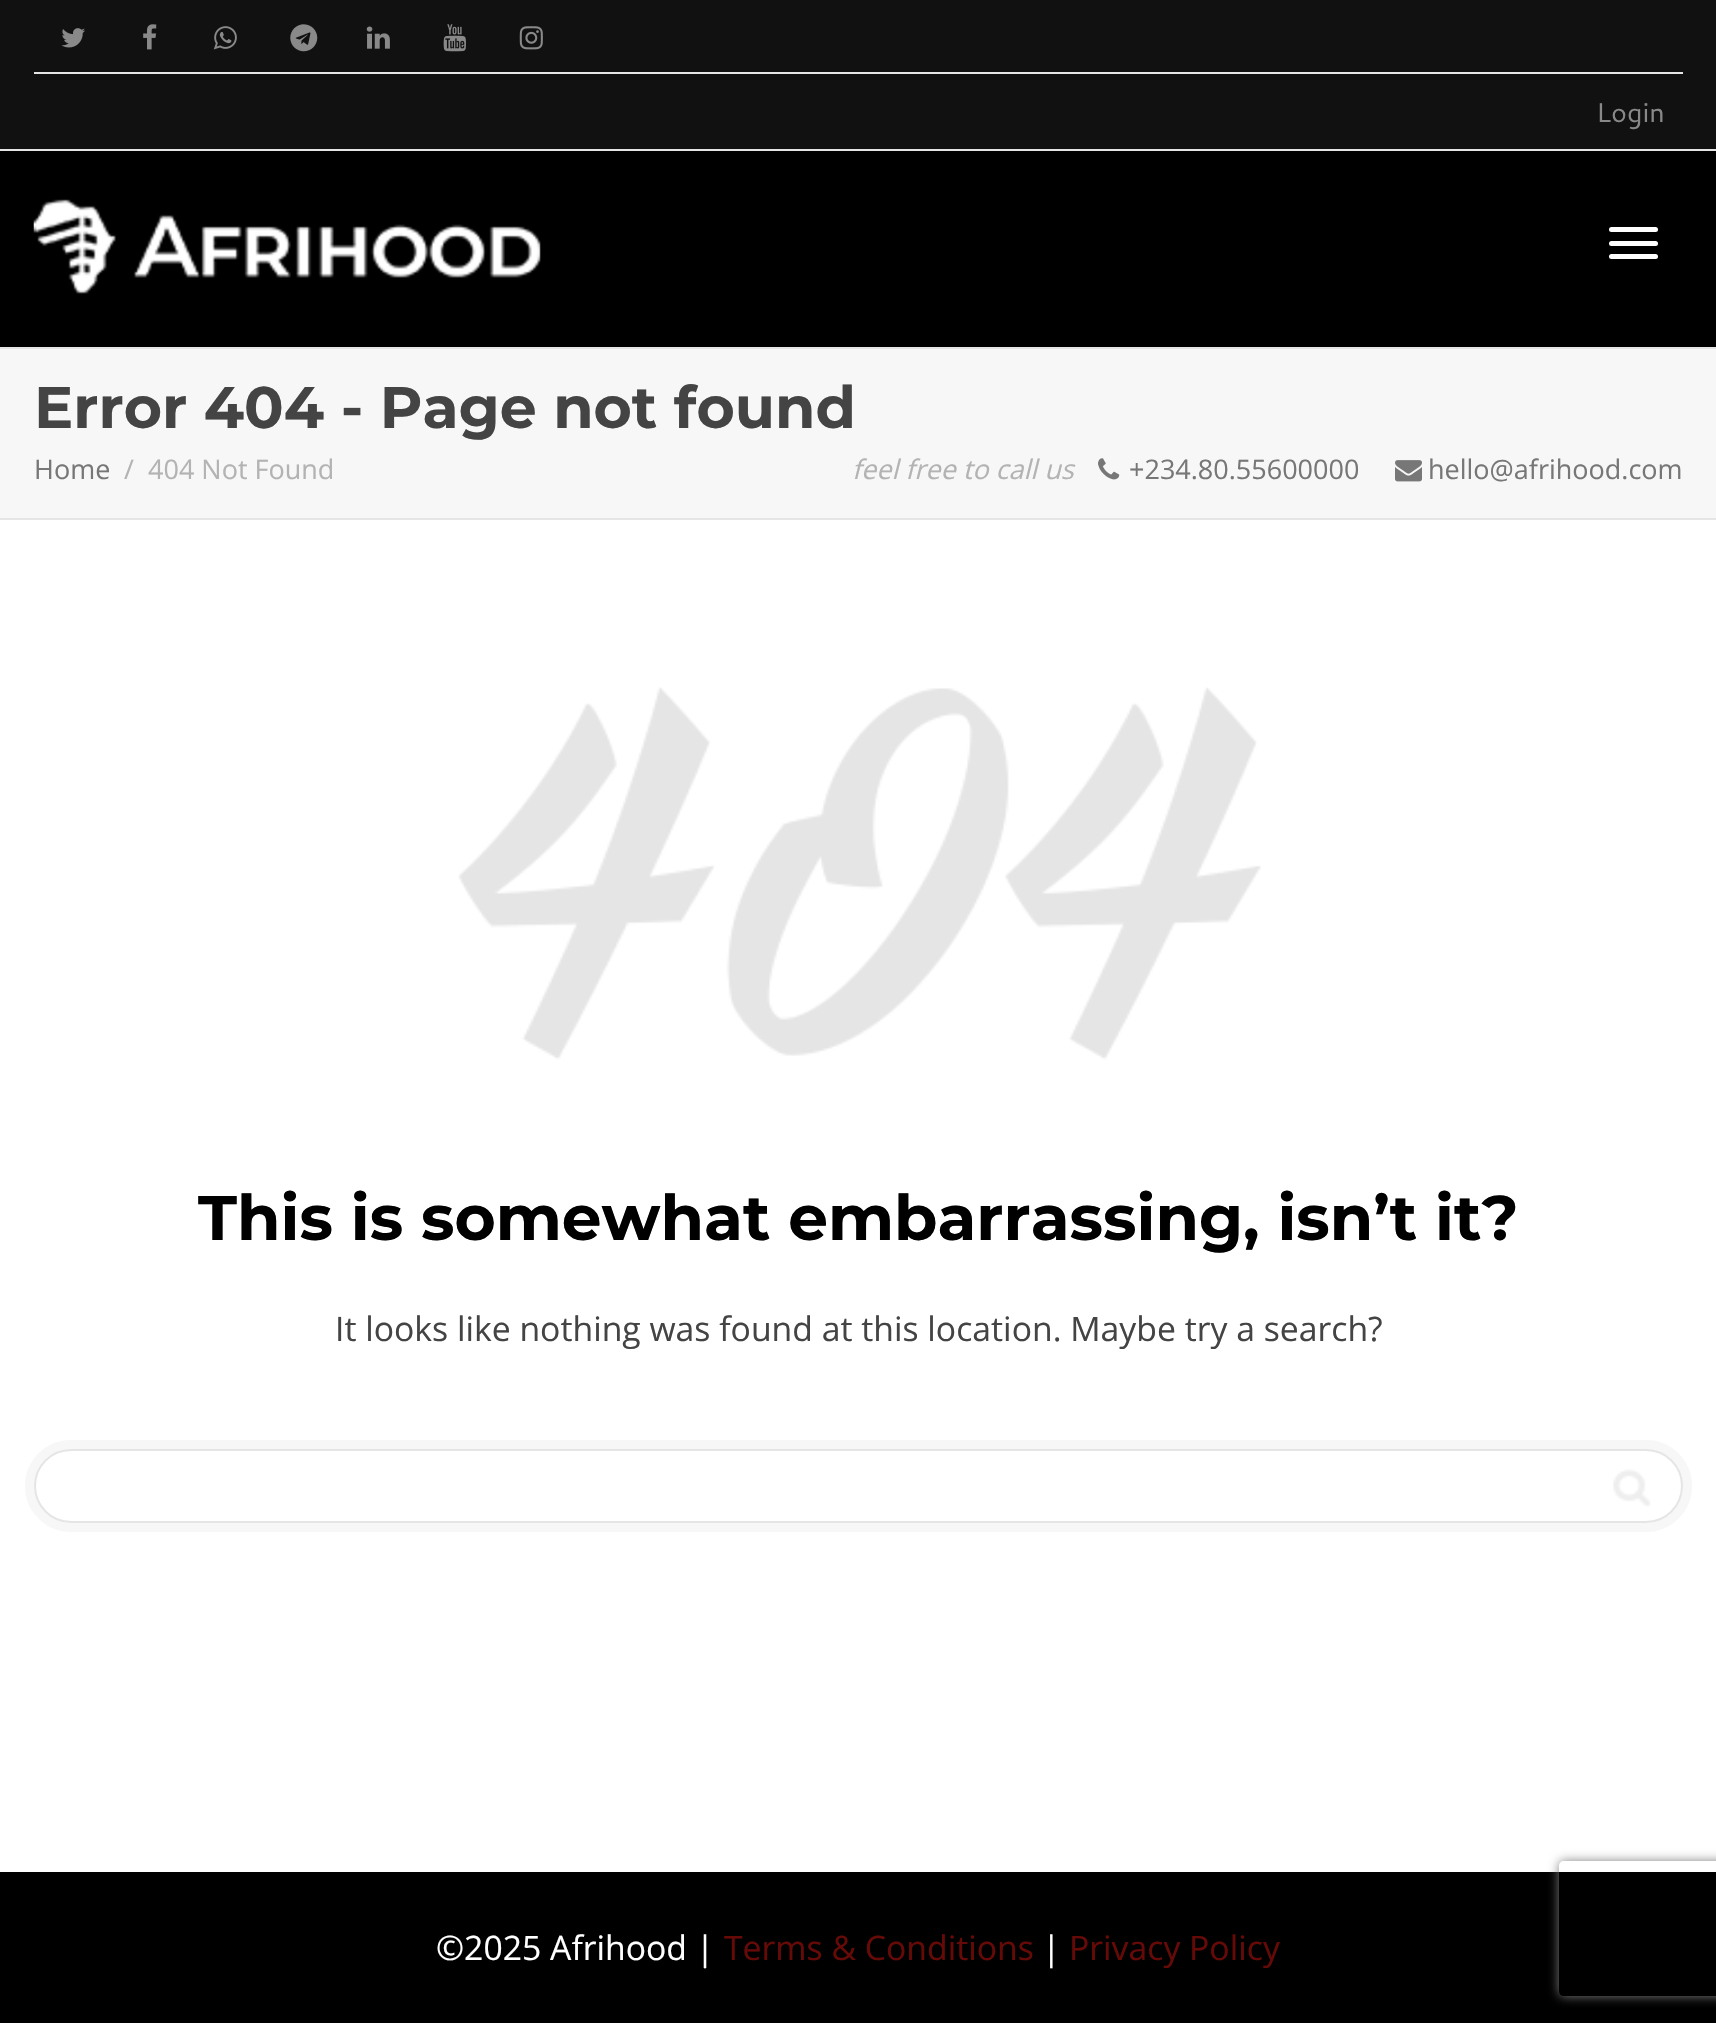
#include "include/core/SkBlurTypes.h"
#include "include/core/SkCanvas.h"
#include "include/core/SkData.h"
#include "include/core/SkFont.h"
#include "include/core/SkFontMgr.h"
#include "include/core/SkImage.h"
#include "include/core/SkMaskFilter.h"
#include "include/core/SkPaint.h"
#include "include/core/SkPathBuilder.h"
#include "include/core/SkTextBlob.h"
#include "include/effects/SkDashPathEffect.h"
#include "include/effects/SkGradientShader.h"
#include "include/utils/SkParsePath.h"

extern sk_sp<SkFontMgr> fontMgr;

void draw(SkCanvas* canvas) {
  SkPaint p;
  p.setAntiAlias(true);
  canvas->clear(SK_ColorWHITE);
  p.setColor(SkColorSetRGB(17, 17, 17));
  canvas->drawRect(SkRect::MakeLTRB(0, 0, 1716, 149), p);
  p.setColor(SkColorSetRGB(229, 229, 229));
  canvas->drawRect(SkRect::MakeLTRB(0, 149, 1716, 151), p);
  canvas->drawRect(SkRect::MakeLTRB(34, 72, 1683, 74), p);
  canvas->drawImageRect(SkImages::DeferredFromEncodedData(SkData::MakeFromFileName("images/1.png")), SkRect::MakeLTRB(61, 28, 85, 48), SkSamplingOptions());
  canvas->drawImageRect(SkImages::DeferredFromEncodedData(SkData::MakeFromFileName("images/2.png")), SkRect::MakeLTRB(143, 24, 157, 50), SkSamplingOptions());
  canvas->drawImageRect(SkImages::DeferredFromEncodedData(SkData::MakeFromFileName("images/3.png")), SkRect::MakeLTRB(213, 26, 237, 50), SkSamplingOptions());
  canvas->drawImageRect(SkImages::DeferredFromEncodedData(SkData::MakeFromFileName("images/4.png")), SkRect::MakeLTRB(290, 24, 318, 52), SkSamplingOptions());
  canvas->drawImageRect(SkImages::DeferredFromEncodedData(SkData::MakeFromFileName("images/5.png")), SkRect::MakeLTRB(366, 26, 390, 49), SkSamplingOptions());
  canvas->drawImageRect(SkImages::DeferredFromEncodedData(SkData::MakeFromFileName("images/6.png")), SkRect::MakeLTRB(443, 24, 466, 52), SkSamplingOptions());
  canvas->drawImageRect(SkImages::DeferredFromEncodedData(SkData::MakeFromFileName("images/7.png")), SkRect::MakeLTRB(519, 26, 543, 50), SkSamplingOptions());
  p.setColor(SK_ColorBLACK);
  canvas->drawRect(SkRect::MakeLTRB(0, 151, 1716, 347), p);
  p.setColor(SkColorSetRGB(229, 229, 229));
  canvas->drawRect(SkRect::MakeLTRB(0, 347, 1716, 349), p);
  canvas->drawImageRect(SkImages::DeferredFromEncodedData(SkData::MakeFromFileName("images/8.png")), SkRect::MakeLTRB(33, 199, 541, 294), SkSamplingOptions());
  p.setColor(SK_ColorWHITE);
  canvas->drawRoundRect(SkRect::MakeLTRB(1609, 227, 1658, 232), 2.5f, 2.5f, p);
  canvas->drawRoundRect(SkRect::MakeLTRB(1609, 241, 1658, 246), 2.5f, 2.5f, p);
  canvas->drawRoundRect(SkRect::MakeLTRB(1609, 254, 1658, 259), 2.5f, 2.5f, p);
  p.setColor(SkColorSetRGB(247, 247, 247));
  canvas->drawRect(SkRect::MakeLTRB(0, 349, 1716, 518), p);
  p.setColor(SkColorSetRGB(229, 229, 229));
  canvas->drawRect(SkRect::MakeLTRB(0, 518, 1716, 520), p);
  canvas->drawImageRect(SkImages::DeferredFromEncodedData(SkData::MakeFromFileName("images/9.png")), SkRect::MakeLTRB(1098, 458, 1120, 480), SkSamplingOptions());
  canvas->drawImageRect(SkImages::DeferredFromEncodedData(SkData::MakeFromFileName("images/10.png")), SkRect::MakeLTRB(1395, 460, 1422, 482), SkSamplingOptions());
  canvas->drawImageRect(SkImages::DeferredFromEncodedData(SkData::MakeFromFileName("images/11.png")), SkRect::MakeLTRB(458, 687, 1261, 1060), SkSamplingOptions());
  p.setStyle(SkPaint::kStroke_Style);
  p.setStrokeWidth(9);
  p.setColor(SkColorSetRGB(247, 247, 247));
  canvas->drawRoundRect(SkRect::MakeLTRB(29.5f, 1444.5f, 1687.5f, 1527.5f), 41.5f, 41.5f, p);
  p.setStrokeWidth(2);
  p.setColor(SkColorSetRGB(229, 229, 229));
  canvas->drawRoundRect(SkRect::MakeLTRB(35, 1450, 1682, 1522), 36, 36, p);
  canvas->drawImageRect(SkImages::DeferredFromEncodedData(SkData::MakeFromFileName("images/12.png")), SkRect::MakeLTRB(1613, 1469, 1651, 1507), SkSamplingOptions());
  p.setStyle(SkPaint::kFill_Style);
  p.setColor(SK_ColorBLACK);
  canvas->drawRect(SkRect::MakeLTRB(0, 1872, 1716, 2023), p);
  canvas->save();
  canvas->clipPath(SkPathBuilder(SkPathFillType::kEvenOdd).moveTo(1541, 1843).lineTo(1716, 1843).lineTo(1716, 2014).lineTo(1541, 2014).close().moveTo(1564, 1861).lineTo(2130, 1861).cubicTo(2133, 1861, 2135, 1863, 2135, 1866).lineTo(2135, 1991).cubicTo(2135, 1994, 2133, 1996, 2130, 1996).lineTo(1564, 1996).cubicTo(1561, 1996, 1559, 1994, 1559, 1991).lineTo(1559, 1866).cubicTo(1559, 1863, 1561, 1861, 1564, 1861).close().detach(), true);
  p.setColor(SkColorSetRGB(128, 128, 128));
  p.setMaskFilter(SkMaskFilter::MakeBlur(kNormal_SkBlurStyle, 5.5f));
  canvas->drawRoundRect(SkRect::MakeLTRB(1559, 1861, 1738, 1996), 5, 5, p);
  p.setMaskFilter(nullptr);
  canvas->restore();
  SkFont font1(fontMgr->matchFamilyStyle("Cantarell", SkFontStyle::Normal()), 27);
  font1.setSubpixel(true);
  p.setColor(SkColorSetRGB(136, 136, 136));
  canvas->drawString("Login", 1596, 122, font1, p);
  SkFont font2(fontMgr->matchFamilyStyle("Montserrat", SkFontStyle::Bold()), 58.5f);
  font2.setSubpixel(true);
  p.setColor(SkColorSetRGB(68, 68, 68));
  canvas->drawString("Error 404 - Page not found", 34, 428, font2, p);
  SkFont font3(fontMgr->matchFamilyStyle("Open Sans", SkFontStyle::Normal()), 27);
  font3.setSubpixel(true);
  p.setColor(SkColorSetRGB(119, 119, 119));
  canvas->drawString("Home", 34, 479, font3, p);
  p.setColor(SkColorSetRGB(179, 179, 179));
  canvas->drawString("/", 124, 479, font3, p);
  canvas->drawString("404 Not Found", 148, 479, font3, p);
  SkFont font4(fontMgr->matchFamilyStyle("Open Sans", SkFontStyle::Italic()), 27);
  font4.setSubpixel(true);
  canvas->drawString("feel free to call us", 852, 479, font4, p);
  p.setColor(SkColorSetRGB(119, 119, 119));
  canvas->drawString("+234.80.55600000", 1129, 479, font3, p);
  canvas->drawString("hello@afrihood.com", 1428, 479, font3, p);
  SkFont font5(fontMgr->matchFamilyStyle("Montserrat", SkFontStyle::Bold()), 63);
  font5.setSubpixel(true);
  p.setColor(SK_ColorBLACK);
  canvas->drawString("This is somewhat embarrassing, isn’t it?", 198, 1240, font5, p);
  SkFont font6(fontMgr->matchFamilyStyle("Open Sans", SkFontStyle::Normal()), 33.75f);
  font6.setSubpixel(true);
  p.setColor(SkColorSetRGB(68, 68, 68));
  canvas->drawString("It looks like nothing was found at this location. Maybe try a search?", 335, 1341, font6, p);
  p.setColor(SK_ColorWHITE);
  canvas->drawString("©2025 Afrihood |", 436, 1960, font6, p);
  p.setColor(SkColorSetRGB(102, 10, 7));
  canvas->drawString("Terms & Conditions", 724, 1960, font6, p);
  p.setColor(SK_ColorWHITE);
  canvas->drawString("|", 1042, 1960, font6, p);
  p.setColor(SkColorSetRGB(102, 10, 7));
  canvas->drawString("Privacy Policy", 1069, 1960, font6, p);
}
